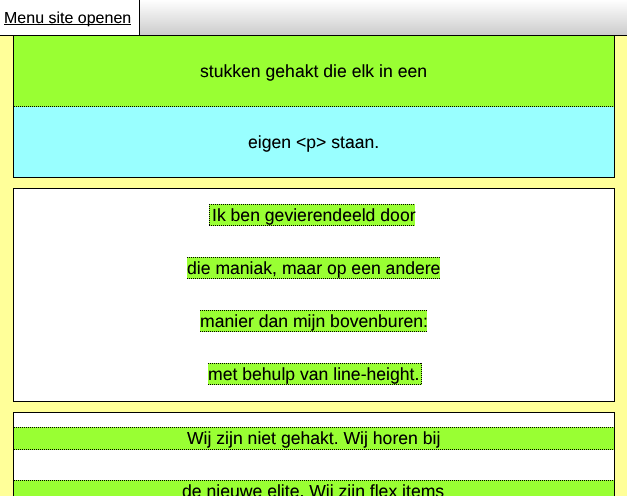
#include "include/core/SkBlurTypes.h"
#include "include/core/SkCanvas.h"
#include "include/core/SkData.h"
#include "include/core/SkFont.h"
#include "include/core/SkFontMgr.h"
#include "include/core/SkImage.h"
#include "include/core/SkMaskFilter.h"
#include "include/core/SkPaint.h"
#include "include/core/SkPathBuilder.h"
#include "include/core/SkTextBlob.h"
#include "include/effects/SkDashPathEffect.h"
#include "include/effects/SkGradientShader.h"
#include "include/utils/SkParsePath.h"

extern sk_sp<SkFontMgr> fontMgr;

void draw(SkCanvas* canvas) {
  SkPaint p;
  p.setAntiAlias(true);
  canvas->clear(SkColorSetRGB(255, 255, 153));
  p.setStyle(SkPaint::kStroke_Style);
  p.setStrokeWidth(1);
  p.setColor(SK_ColorBLACK);
  canvas->drawRect(SkRect::MakeLTRB(13.5f, -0.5f, 614.5f, 177.5f), p);
  p.setStyle(SkPaint::kFill_Style);
  {
    const SkColor colors[] = {SK_ColorWHITE, SkColorSetRGB(204, 204, 204)};
    const float stops[] = {0, 1};
    const SkPoint ends[] = {{314, 0}, {314, 35}};
    p.setShader(SkGradientShader::MakeLinear(ends, colors, stops, 2, SkTileMode::kClamp));
    p.setAlpha(255);
  }
  canvas->drawRect(SkRect::MakeLTRB(140, 0, 627, 35), p);
  p.setShader(nullptr);
  p.setColor(SK_ColorBLACK);
  canvas->drawRect(SkRect::MakeLTRB(0, 35, 627, 36), p);
  p.setColor(SK_ColorWHITE);
  canvas->drawRect(SkRect::MakeLTRB(0, 0, 139, 35), p);
  p.setColor(SK_ColorBLACK);
  canvas->drawRect(SkRect::MakeLTRB(139, 0, 140, 35), p);
  canvas->drawRect(SkRect::MakeLTRB(4, 24, 131, 25), p);
  p.setColor(SkColorSetRGB(153, 255, 51));
  canvas->drawRect(SkRect::MakeLTRB(14, 36, 614, 107), p);
  p.setStyle(SkPaint::kStroke_Style);
  p.setColor(SK_ColorBLACK);
  p.setPathEffect(SkDashPathEffect::Make({{1, 1}}, 0));
  canvas->drawPath(SkPathBuilder().moveTo(14, 106.5f).lineTo(614, 106.5f).detach(), p);
  p.setPathEffect(nullptr);
  p.setStyle(SkPaint::kFill_Style);
  p.setColor(SkColorSetRGB(153, 255, 255));
  canvas->drawRect(SkRect::MakeLTRB(14, 107, 614, 177), p);
  p.setColor(SK_ColorWHITE);
  canvas->drawRect(SkRect::MakeLTRB(13.5f, 188.5f, 614.5f, 401.5f), p);
  p.setStyle(SkPaint::kStroke_Style);
  p.setColor(SK_ColorBLACK);
  canvas->drawRect(SkRect::MakeLTRB(13.5f, 188.5f, 614.5f, 401.5f), p);
  p.setStyle(SkPaint::kFill_Style);
  p.setColor(SkColorSetRGB(153, 255, 51));
  canvas->drawRect(SkRect::MakeLTRB(209, 204, 415, 226), p);
  p.setStyle(SkPaint::kStroke_Style);
  p.setColor(SK_ColorBLACK);
  p.setPathEffect(SkDashPathEffect::Make({{1, 1}}, 0));
  canvas->drawPath(SkPathBuilder().moveTo(209, 204.5f).lineTo(415, 204.5f).detach(), p);
  p.setPathEffect(nullptr);
  p.setPathEffect(SkDashPathEffect::Make({{1, 1}}, 0));
  canvas->drawPath(SkPathBuilder().moveTo(209, 225.5f).lineTo(415, 225.5f).detach(), p);
  p.setPathEffect(nullptr);
  p.setPathEffect(SkDashPathEffect::Make({{1, 1}}, 0));
  canvas->drawPath(SkPathBuilder().moveTo(209.5f, 204).lineTo(209.5f, 226).detach(), p);
  p.setPathEffect(nullptr);
  p.setStyle(SkPaint::kFill_Style);
  p.setColor(SkColorSetRGB(153, 255, 51));
  canvas->drawRect(SkRect::MakeLTRB(187, 257, 440, 279), p);
  p.setStyle(SkPaint::kStroke_Style);
  p.setColor(SK_ColorBLACK);
  p.setPathEffect(SkDashPathEffect::Make({{1, 1}}, 0));
  canvas->drawPath(SkPathBuilder().moveTo(187, 257.5f).lineTo(440, 257.5f).detach(), p);
  p.setPathEffect(nullptr);
  p.setPathEffect(SkDashPathEffect::Make({{1, 1}}, 0));
  canvas->drawPath(SkPathBuilder().moveTo(187, 278.5f).lineTo(440, 278.5f).detach(), p);
  p.setPathEffect(nullptr);
  p.setStyle(SkPaint::kFill_Style);
  p.setColor(SkColorSetRGB(153, 255, 51));
  canvas->drawRect(SkRect::MakeLTRB(200, 310, 427, 332), p);
  p.setStyle(SkPaint::kStroke_Style);
  p.setColor(SK_ColorBLACK);
  p.setPathEffect(SkDashPathEffect::Make({{1, 1}}, 0));
  canvas->drawPath(SkPathBuilder().moveTo(200, 310.5f).lineTo(427, 310.5f).detach(), p);
  p.setPathEffect(nullptr);
  p.setPathEffect(SkDashPathEffect::Make({{1, 1}}, 0));
  canvas->drawPath(SkPathBuilder().moveTo(200, 331.5f).lineTo(427, 331.5f).detach(), p);
  p.setPathEffect(nullptr);
  p.setStyle(SkPaint::kFill_Style);
  p.setColor(SkColorSetRGB(153, 255, 51));
  canvas->drawRect(SkRect::MakeLTRB(208, 363, 422, 385), p);
  p.setStyle(SkPaint::kStroke_Style);
  p.setColor(SK_ColorBLACK);
  p.setPathEffect(SkDashPathEffect::Make({{1, 1}}, 0));
  canvas->drawPath(SkPathBuilder().moveTo(208, 363.5f).lineTo(422, 363.5f).detach(), p);
  p.setPathEffect(nullptr);
  p.setPathEffect(SkDashPathEffect::Make({{1, 1}}, 0));
  canvas->drawPath(SkPathBuilder().moveTo(421.5f, 363).lineTo(421.5f, 385).detach(), p);
  p.setPathEffect(nullptr);
  p.setPathEffect(SkDashPathEffect::Make({{1, 1}}, 0));
  canvas->drawPath(SkPathBuilder().moveTo(208, 384.5f).lineTo(422, 384.5f).detach(), p);
  p.setPathEffect(nullptr);
  p.setStyle(SkPaint::kFill_Style);
  p.setColor(SK_ColorWHITE);
  canvas->drawRect(SkRect::MakeLTRB(14, 413, 614, 480), p);
  p.setStyle(SkPaint::kStroke_Style);
  p.setColor(SK_ColorBLACK);
  canvas->drawRect(SkRect::MakeLTRB(13.5f, 412.5f, 614.5f, 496.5f), p);
  p.setStyle(SkPaint::kFill_Style);
  p.setColor(SkColorSetRGB(153, 255, 51));
  canvas->drawRect(SkRect::MakeLTRB(14, 427, 614, 450), p);
  p.setStyle(SkPaint::kStroke_Style);
  p.setColor(SK_ColorBLACK);
  p.setPathEffect(SkDashPathEffect::Make({{1, 1}}, 0));
  canvas->drawPath(SkPathBuilder().moveTo(14, 427.5f).lineTo(614, 427.5f).detach(), p);
  p.setPathEffect(nullptr);
  p.setPathEffect(SkDashPathEffect::Make({{1, 1}}, 0));
  canvas->drawPath(SkPathBuilder().moveTo(14, 449.5f).lineTo(614, 449.5f).detach(), p);
  p.setPathEffect(nullptr);
  p.setStyle(SkPaint::kFill_Style);
  p.setColor(SkColorSetRGB(153, 255, 51));
  canvas->drawRect(SkRect::MakeLTRB(14, 480, 614, 496), p);
  p.setStyle(SkPaint::kStroke_Style);
  p.setColor(SK_ColorBLACK);
  p.setPathEffect(SkDashPathEffect::Make({{1, 1}}, 0));
  canvas->drawPath(SkPathBuilder().moveTo(14, 480.5f).lineTo(614, 480.5f).detach(), p);
  p.setPathEffect(nullptr);
  SkFont font1(fontMgr->matchFamilyStyle("Liberation Sans", SkFontStyle::Normal()), 16);
  font1.setSubpixel(true);
  p.setStyle(SkPaint::kFill_Style);
  canvas->drawString("Menu site openen", 4, 23, font1, p);
  SkFont font2(fontMgr->matchFamilyStyle("Liberation Sans", SkFontStyle::Normal()), 17.6f);
  font2.setSubpixel(true);
  canvas->drawString("stukken gehakt die elk in een", 200, 77, font2, p);
  canvas->drawString("eigen <p> staan.", 248, 148, font2, p);
  canvas->drawString("Ik ben gevierendeeld door", 212, 221, font2, p);
  canvas->drawString("die maniak, maar op een andere", 187, 274, font2, p);
  canvas->drawString("manier dan mijn bovenburen:", 200, 327, font2, p);
  canvas->drawString("met behulp van line-height.", 208, 380, font2, p);
  canvas->drawString("Wij zijn niet gehakt. Wij horen bij", 187, 444, font2, p);
  canvas->drawString("de nieuwe elite. Wij zijn flex items", 182, 497, font2, p);
}
